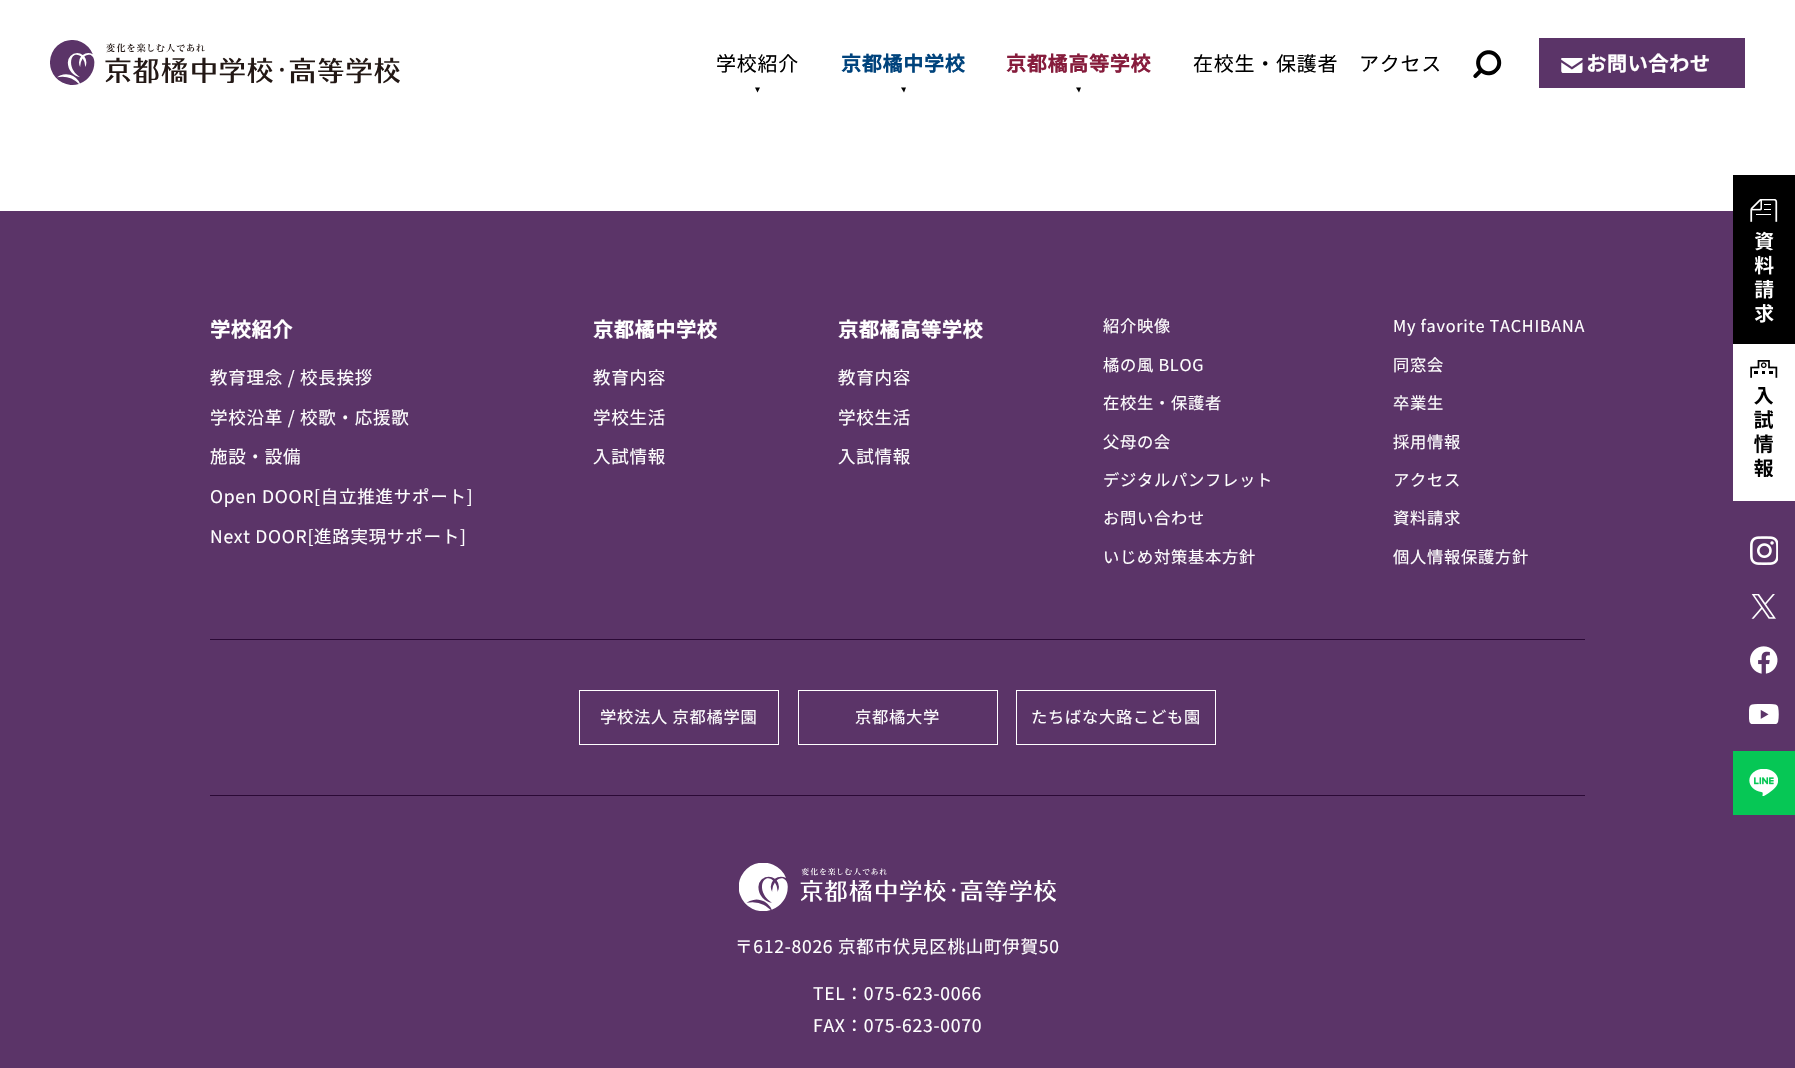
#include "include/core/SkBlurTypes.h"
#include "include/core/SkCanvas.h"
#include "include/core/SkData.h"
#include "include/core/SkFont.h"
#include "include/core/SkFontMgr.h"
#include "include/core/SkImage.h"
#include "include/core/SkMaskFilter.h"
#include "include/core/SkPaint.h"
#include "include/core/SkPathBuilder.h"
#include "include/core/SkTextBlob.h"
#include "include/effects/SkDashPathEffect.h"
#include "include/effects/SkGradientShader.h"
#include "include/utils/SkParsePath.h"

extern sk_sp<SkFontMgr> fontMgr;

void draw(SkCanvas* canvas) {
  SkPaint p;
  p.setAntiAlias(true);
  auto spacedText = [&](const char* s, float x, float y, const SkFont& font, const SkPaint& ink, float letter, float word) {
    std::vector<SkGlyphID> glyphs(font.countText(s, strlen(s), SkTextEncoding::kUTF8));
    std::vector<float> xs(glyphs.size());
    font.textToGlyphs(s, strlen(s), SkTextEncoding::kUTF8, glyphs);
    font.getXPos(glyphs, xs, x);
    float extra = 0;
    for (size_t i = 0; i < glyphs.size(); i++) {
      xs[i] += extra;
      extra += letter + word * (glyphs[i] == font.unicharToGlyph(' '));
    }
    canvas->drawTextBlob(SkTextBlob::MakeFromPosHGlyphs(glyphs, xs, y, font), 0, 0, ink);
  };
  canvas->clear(SK_ColorWHITE);
  canvas->drawImageRect(SkImages::DeferredFromEncodedData(SkData::MakeFromFileName("images/1.png")), SkRect::MakeLTRB(50, 40, 400, 85), SkSamplingOptions());
  canvas->drawImageRect(SkImages::DeferredFromEncodedData(SkData::MakeFromFileName("images/2.png")), SkRect::MakeLTRB(1473, 50, 1502, 79), SkSamplingOptions());
  p.setColor(SK_ColorBLACK);
  canvas->drawPath(SkPathBuilder().moveTo(755, 87.5f).lineTo(760, 87.5f).lineTo(757.5f, 92.5f).close().detach(), p);
  canvas->drawPath(SkPathBuilder().moveTo(901, 87.5f).lineTo(906, 87.5f).lineTo(904, 92.5f).close().detach(), p);
  canvas->drawPath(SkPathBuilder().moveTo(1076, 87.5f).lineTo(1081, 87.5f).lineTo(1079, 92.5f).close().detach(), p);
  p.setColor(SkColorSetRGB(91, 52, 104));
  canvas->drawRect(SkRect::MakeLTRB(1539, 38, 1745, 88), p);
  canvas->drawImageRect(SkImages::DeferredFromEncodedData(SkData::MakeFromFileName("images/3.png")), SkRect::MakeLTRB(1561, 58, 1583, 73), SkSamplingOptions());
  canvas->drawRect(SkRect::MakeLTRB(0, 211, 1795, 1068), p);
  p.setColor(SkColorSetRGB(43, 9, 54));
  canvas->drawRect(SkRect::MakeLTRB(210, 639, 1585, 640), p);
  canvas->drawRect(SkRect::MakeLTRB(210, 795, 1585, 796), p);
  p.setStyle(SkPaint::kStroke_Style);
  p.setStrokeWidth(1);
  p.setColor(SK_ColorWHITE);
  canvas->drawRect(SkRect::MakeLTRB(579.5f, 690.5f, 778.5f, 744.5f), p);
  canvas->drawRect(SkRect::MakeLTRB(798.5f, 690.5f, 997.5f, 744.5f), p);
  canvas->drawRect(SkRect::MakeLTRB(1016.5f, 690.5f, 1215.5f, 744.5f), p);
  canvas->drawImageRect(SkImages::DeferredFromEncodedData(SkData::MakeFromFileName("images/4.png")), SkRect::MakeLTRB(739, 863, 1056, 911), SkSamplingOptions());
  p.setStyle(SkPaint::kFill_Style);
  p.setColor(SK_ColorBLACK);
  canvas->drawRect(SkRect::MakeLTRB(1733, 175, 1795, 344), p);
  canvas->drawImageRect(SkImages::DeferredFromEncodedData(SkData::MakeFromFileName("images/5.png")), SkRect::MakeLTRB(1750, 199, 1778, 323), SkSamplingOptions());
  p.setColor(SK_ColorWHITE);
  canvas->drawRect(SkRect::MakeLTRB(1733, 344, 1795, 501), p);
  canvas->drawImageRect(SkImages::DeferredFromEncodedData(SkData::MakeFromFileName("images/6.png")), SkRect::MakeLTRB(1750, 360, 1778, 477), SkSamplingOptions());
  canvas->drawImageRect(SkImages::DeferredFromEncodedData(SkData::MakeFromFileName("images/7.png")), SkRect::MakeLTRB(1750, 536, 1778, 565), SkSamplingOptions());
  canvas->drawImageRect(SkImages::DeferredFromEncodedData(SkData::MakeFromFileName("images/8.png")), SkRect::MakeLTRB(1751, 594, 1776, 619), SkSamplingOptions());
  canvas->drawImageRect(SkImages::DeferredFromEncodedData(SkData::MakeFromFileName("images/9.png")), SkRect::MakeLTRB(1750, 646, 1778, 674), SkSamplingOptions());
  canvas->drawImageRect(SkImages::DeferredFromEncodedData(SkData::MakeFromFileName("images/10.png")), SkRect::MakeLTRB(1749, 704, 1779, 724), SkSamplingOptions());
  p.setColor(SkColorSetRGB(6, 199, 85));
  canvas->drawRect(SkRect::MakeLTRB(1733, 751, 1795, 815), p);
  canvas->drawImageRect(SkImages::DeferredFromEncodedData(SkData::MakeFromFileName("images/11.png")), SkRect::MakeLTRB(1749, 769, 1778, 796), SkSamplingOptions());
  SkFont font1(fontMgr->matchFamilyStyle("Noto Sans JP", SkFontStyle::Normal()), 20);
  font1.setSubpixel(true);
  p.setColor(SK_ColorBLACK);
  spacedText("学校紹介", 716, 71, font1, p, 0.75f, 0);
  SkFont font2(fontMgr->matchFamilyStyle("Noto Sans JP", SkFontStyle::Bold()), 20);
  font2.setSubpixel(true);
  p.setColor(SkColorSetRGB(0, 67, 124));
  spacedText("京都橘中学校", 841, 71, font2, p, 0.75f, 0);
  p.setColor(SkColorSetRGB(134, 28, 60));
  spacedText("京都橘高等学校", 1006, 71, font2, p, 0.75f, 0);
  p.setColor(SK_ColorBLACK);
  spacedText("在校生・保護者", 1193, 71, font1, p, 0.75f, 0);
  spacedText("アクセス", 1359, 71, font1, p, 0.75f, 0);
  p.setColor(SK_ColorWHITE);
  spacedText("お問い合わせ", 1586, 71, font2, p, 0.75f, 0);
  spacedText("学校紹介", 210, 337, font2, p, 0.75f, 0);
  SkFont font3(fontMgr->matchFamilyStyle("Noto Sans JP", SkFontStyle::Normal()), 17.5f);
  font3.setSubpixel(true);
  spacedText("教育理念 / 校長挨拶", 210, 384, font3, p, 0.75f, 0);
  spacedText("学校沿革 / 校歌・応援歌", 210, 424, font3, p, 0.75f, 0);
  spacedText("施設・設備", 210, 463, font3, p, 0.75f, 0);
  spacedText("Open DOOR[自立推進サポート]", 210, 503, font3, p, 0.75f, 0);
  spacedText("Next DOOR[進路実現サポート]", 210, 543, font3, p, 0.75f, 0);
  spacedText("京都橘中学校", 593, 337, font2, p, 0.75f, 0);
  spacedText("教育内容", 593, 384, font3, p, 0.75f, 0);
  spacedText("学校生活", 593, 424, font3, p, 0.75f, 0);
  spacedText("入試情報", 593, 463, font3, p, 0.75f, 0);
  spacedText("京都橘高等学校", 838, 337, font2, p, 0.75f, 0);
  spacedText("教育内容", 838, 384, font3, p, 0.75f, 0);
  spacedText("学校生活", 838, 424, font3, p, 0.75f, 0);
  spacedText("入試情報", 838, 463, font3, p, 0.75f, 0);
  SkFont font4(fontMgr->matchFamilyStyle("Noto Sans JP", SkFontStyle::Normal()), 16.25f);
  font4.setSubpixel(true);
  spacedText("紹介映像", 1103, 332, font4, p, 0.75f, 0);
  spacedText("橘の風 BLOG", 1103, 371, font4, p, 0.75f, 0);
  spacedText("在校生・保護者", 1103, 409, font4, p, 0.75f, 0);
  spacedText("父母の会", 1103, 448, font4, p, 0.75f, 0);
  spacedText("デジタルパンフレット", 1103, 486, font4, p, 0.75f, 0);
  spacedText("お問い合わせ", 1103, 524, font4, p, 0.75f, 0);
  spacedText("いじめ対策基本方針", 1103, 563, font4, p, 0.75f, 0);
  spacedText("My favorite TACHIBANA", 1393, 332, font4, p, 0.75f, 0);
  spacedText("同窓会", 1393, 371, font4, p, 0.75f, 0);
  spacedText("卒業生", 1393, 409, font4, p, 0.75f, 0);
  spacedText("採用情報", 1393, 448, font4, p, 0.75f, 0);
  spacedText("アクセス", 1393, 486, font4, p, 0.75f, 0);
  spacedText("資料請求", 1393, 524, font4, p, 0.75f, 0);
  spacedText("個人情報保護方針", 1393, 563, font4, p, 0.75f, 0);
  spacedText("学校法人 京都橘学園", 600, 723, font4, p, 0.75f, 0);
  spacedText("京都橘大学", 855, 723, font4, p, 0.75f, 0);
  spacedText("たちばな大路こども園", 1031, 723, font4, p, 0.75f, 0);
  spacedText("〒612-8026 京都市伏見区桃山町伊賀50", 735, 953, font3, p, 0.75f, 0);
  spacedText("TEL：075-623-0066", 813, 1000, font3, p, 0.75f, 0);
  spacedText("FAX：075-623-0070", 813, 1032, font3, p, 0.75f, 0);
}
